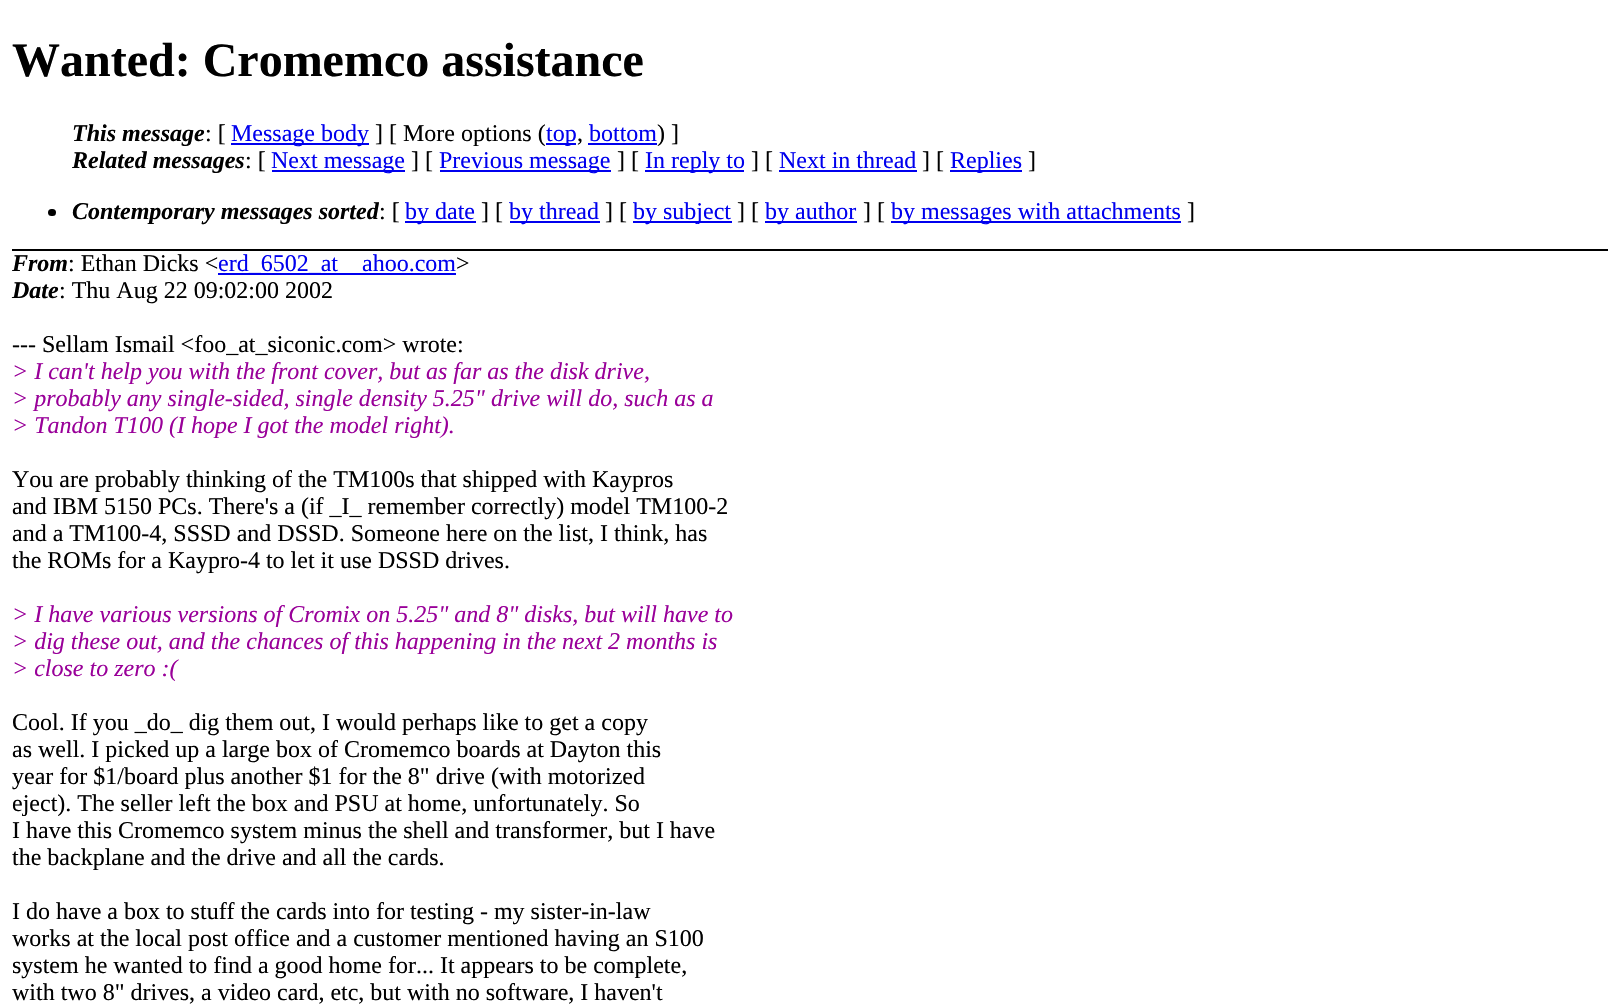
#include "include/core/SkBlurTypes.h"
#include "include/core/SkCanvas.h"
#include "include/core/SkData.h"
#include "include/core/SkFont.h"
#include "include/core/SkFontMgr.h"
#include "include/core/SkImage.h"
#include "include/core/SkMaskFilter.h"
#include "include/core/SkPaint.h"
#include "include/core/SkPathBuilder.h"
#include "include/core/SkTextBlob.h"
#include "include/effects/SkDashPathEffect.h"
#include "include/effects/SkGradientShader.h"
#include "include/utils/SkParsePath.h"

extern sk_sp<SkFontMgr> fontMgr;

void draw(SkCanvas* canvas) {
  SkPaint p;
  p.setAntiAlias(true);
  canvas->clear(SK_ColorWHITE);
  p.setColor(SK_ColorBLACK);
  canvas->drawRect(SkRect::MakeLTRB(12, 249, 1608, 251), p);
  p.setColor(SkColorSetRGB(0, 0, 238));
  canvas->drawRect(SkRect::MakeLTRB(231, 143, 369, 145), p);
  canvas->drawRect(SkRect::MakeLTRB(546, 143, 576, 145), p);
  canvas->drawRect(SkRect::MakeLTRB(588, 143, 657, 145), p);
  canvas->drawRect(SkRect::MakeLTRB(272, 170, 405, 172), p);
  canvas->drawRect(SkRect::MakeLTRB(440, 170, 611, 172), p);
  canvas->drawRect(SkRect::MakeLTRB(645, 170, 744, 172), p);
  canvas->drawRect(SkRect::MakeLTRB(779, 170, 917, 172), p);
  canvas->drawRect(SkRect::MakeLTRB(950, 170, 1022, 172), p);
  p.setColor(SK_ColorBLACK);
  canvas->drawRoundRect(SkRect::MakeLTRB(48, 209, 56, 216), 3.5f, 3.5f, p);
  p.setColor(SkColorSetRGB(0, 0, 238));
  canvas->drawRect(SkRect::MakeLTRB(405, 221, 476, 223), p);
  canvas->drawRect(SkRect::MakeLTRB(510, 221, 600, 223), p);
  canvas->drawRect(SkRect::MakeLTRB(633, 221, 732, 223), p);
  canvas->drawRect(SkRect::MakeLTRB(765, 221, 857, 223), p);
  canvas->drawRect(SkRect::MakeLTRB(891, 221, 1181, 223), p);
  canvas->drawRect(SkRect::MakeLTRB(218, 273, 456, 275), p);
  SkFont font1(fontMgr->matchFamilyStyle("Liberation Serif", SkFontStyle::Bold()), 48);
  font1.setSubpixel(true);
  p.setColor(SK_ColorBLACK);
  canvas->drawString("Wanted: Cromemco assistance", 12, 76, font1, p);
  SkFont font2(fontMgr->matchFamilyStyle("Liberation Serif", SkFontStyle::BoldItalic()), 24);
  font2.setSubpixel(true);
  canvas->drawString("This message", 72, 141, font2, p);
  SkFont font3(fontMgr->matchFamilyStyle("Liberation Serif", SkFontStyle::Normal()), 24);
  font3.setSubpixel(true);
  canvas->drawString(": [", 205, 141, font3, p);
  p.setColor(SkColorSetRGB(0, 0, 238));
  canvas->drawString("Message body", 231, 141, font3, p);
  p.setColor(SK_ColorBLACK);
  canvas->drawString("] [ More options (", 375, 141, font3, p);
  p.setColor(SkColorSetRGB(0, 0, 238));
  canvas->drawString("top", 546, 141, font3, p);
  p.setColor(SK_ColorBLACK);
  canvas->drawString(",", 577, 141, font3, p);
  p.setColor(SkColorSetRGB(0, 0, 238));
  canvas->drawString("bottom", 589, 141, font3, p);
  p.setColor(SK_ColorBLACK);
  canvas->drawString(") ]", 657, 141, font3, p);
  canvas->drawString("Related messages", 72, 168, font2, p);
  canvas->drawString(": [", 245, 168, font3, p);
  p.setColor(SkColorSetRGB(0, 0, 238));
  canvas->drawString("Next message", 271, 168, font3, p);
  p.setColor(SK_ColorBLACK);
  canvas->drawString("] [", 411, 168, font3, p);
  p.setColor(SkColorSetRGB(0, 0, 238));
  canvas->drawString("Previous message", 439, 168, font3, p);
  p.setColor(SK_ColorBLACK);
  canvas->drawString("] [", 617, 168, font3, p);
  p.setColor(SkColorSetRGB(0, 0, 238));
  canvas->drawString("In reply to", 645, 168, font3, p);
  p.setColor(SK_ColorBLACK);
  canvas->drawString("] [", 751, 168, font3, p);
  p.setColor(SkColorSetRGB(0, 0, 238));
  canvas->drawString("Next in thread", 779, 168, font3, p);
  p.setColor(SK_ColorBLACK);
  canvas->drawString("] [", 922, 168, font3, p);
  p.setColor(SkColorSetRGB(0, 0, 238));
  canvas->drawString("Replies", 950, 168, font3, p);
  p.setColor(SK_ColorBLACK);
  canvas->drawString("]", 1028, 168, font3, p);
  canvas->drawString("Contemporary messages sorted", 72, 219, font2, p);
  canvas->drawString(": [", 379, 219, font3, p);
  p.setColor(SkColorSetRGB(0, 0, 238));
  canvas->drawString("by date", 405, 219, font3, p);
  p.setColor(SK_ColorBLACK);
  canvas->drawString("] [", 481, 219, font3, p);
  p.setColor(SkColorSetRGB(0, 0, 238));
  canvas->drawString("by thread", 509, 219, font3, p);
  p.setColor(SK_ColorBLACK);
  canvas->drawString("] [", 605, 219, font3, p);
  p.setColor(SkColorSetRGB(0, 0, 238));
  canvas->drawString("by subject", 633, 219, font3, p);
  p.setColor(SK_ColorBLACK);
  canvas->drawString("] [", 737, 219, font3, p);
  p.setColor(SkColorSetRGB(0, 0, 238));
  canvas->drawString("by author", 765, 219, font3, p);
  p.setColor(SK_ColorBLACK);
  canvas->drawString("] [", 863, 219, font3, p);
  p.setColor(SkColorSetRGB(0, 0, 238));
  canvas->drawString("by messages with attachments", 891, 219, font3, p);
  p.setColor(SK_ColorBLACK);
  canvas->drawString("]", 1187, 219, font3, p);
  canvas->drawString("From", 12, 271, font2, p);
  canvas->drawString(": Ethan Dicks <", 68, 271, font3, p);
  p.setColor(SkColorSetRGB(0, 0, 238));
  canvas->drawString("erd_6502_at", 218, 271, font3, p);
  canvas->drawString("ahoo.com", 362, 271, font3, p);
  p.setColor(SK_ColorBLACK);
  canvas->drawString(">", 456, 271, font3, p);
  canvas->drawString("Date", 12, 298, font2, p);
  canvas->drawString(": Thu Aug 22 09:02:00 2002", 59, 298, font3, p);
  canvas->drawString("--- Sellam Ismail <foo_at_siconic.com> wrote:", 12, 352, font3, p);
  SkFont font4(fontMgr->matchFamilyStyle("Liberation Serif", SkFontStyle::Italic()), 24);
  font4.setSubpixel(true);
  p.setColor(SkColorSetRGB(153, 0, 153));
  canvas->drawString("> I can't help you with the front cover, but as far as the disk drive,", 12, 379, font4, p);
  canvas->drawString("> probably any single-sided, single density 5.25\" drive will do, such as a", 12, 406, font4, p);
  canvas->drawString("> Tandon T100 (I hope I got the model right).", 12, 433, font4, p);
  p.setColor(SK_ColorBLACK);
  canvas->drawString("You are probably thinking of the TM100s that shipped with Kaypros", 12, 487, font3, p);
  canvas->drawString("and IBM 5150 PCs. There's a (if _I_ remember correctly) model TM100-2", 12, 514, font3, p);
  canvas->drawString("and a TM100-4, SSSD and DSSD. Someone here on the list, I think, has", 12, 541, font3, p);
  canvas->drawString("the ROMs for a Kaypro-4 to let it use DSSD drives.", 12, 568, font3, p);
  p.setColor(SkColorSetRGB(153, 0, 153));
  canvas->drawString("> I have various versions of Cromix on 5.25\" and 8\" disks, but will have to", 12, 622, font4, p);
  canvas->drawString("> dig these out, and the chances of this happening in the next 2 months is", 12, 649, font4, p);
  canvas->drawString("> close to zero :(", 12, 676, font4, p);
  p.setColor(SK_ColorBLACK);
  canvas->drawString("Cool. If you _do_ dig them out, I would perhaps like to get a copy", 12, 730, font3, p);
  canvas->drawString("as well. I picked up a large box of Cromemco boards at Dayton this", 12, 757, font3, p);
  canvas->drawString("year for $1/board plus another $1 for the 8\" drive (with motorized", 12, 784, font3, p);
  canvas->drawString("eject). The seller left the box and PSU at home, unfortunately. So", 12, 811, font3, p);
  canvas->drawString("I have this Cromemco system minus the shell and transformer, but I have", 12, 838, font3, p);
  canvas->drawString("the backplane and the drive and all the cards.", 12, 865, font3, p);
  canvas->drawString("I do have a box to stuff the cards into for testing - my sister-in-law", 12, 919, font3, p);
  canvas->drawString("works at the local post office and a customer mentioned having an S100", 12, 946, font3, p);
  canvas->drawString("system he wanted to find a good home for... It appears to be complete,", 12, 973, font3, p);
  canvas->drawString("with two 8\" drives, a video card, etc, but with no software, I haven't", 12, 1000, font3, p);
}
